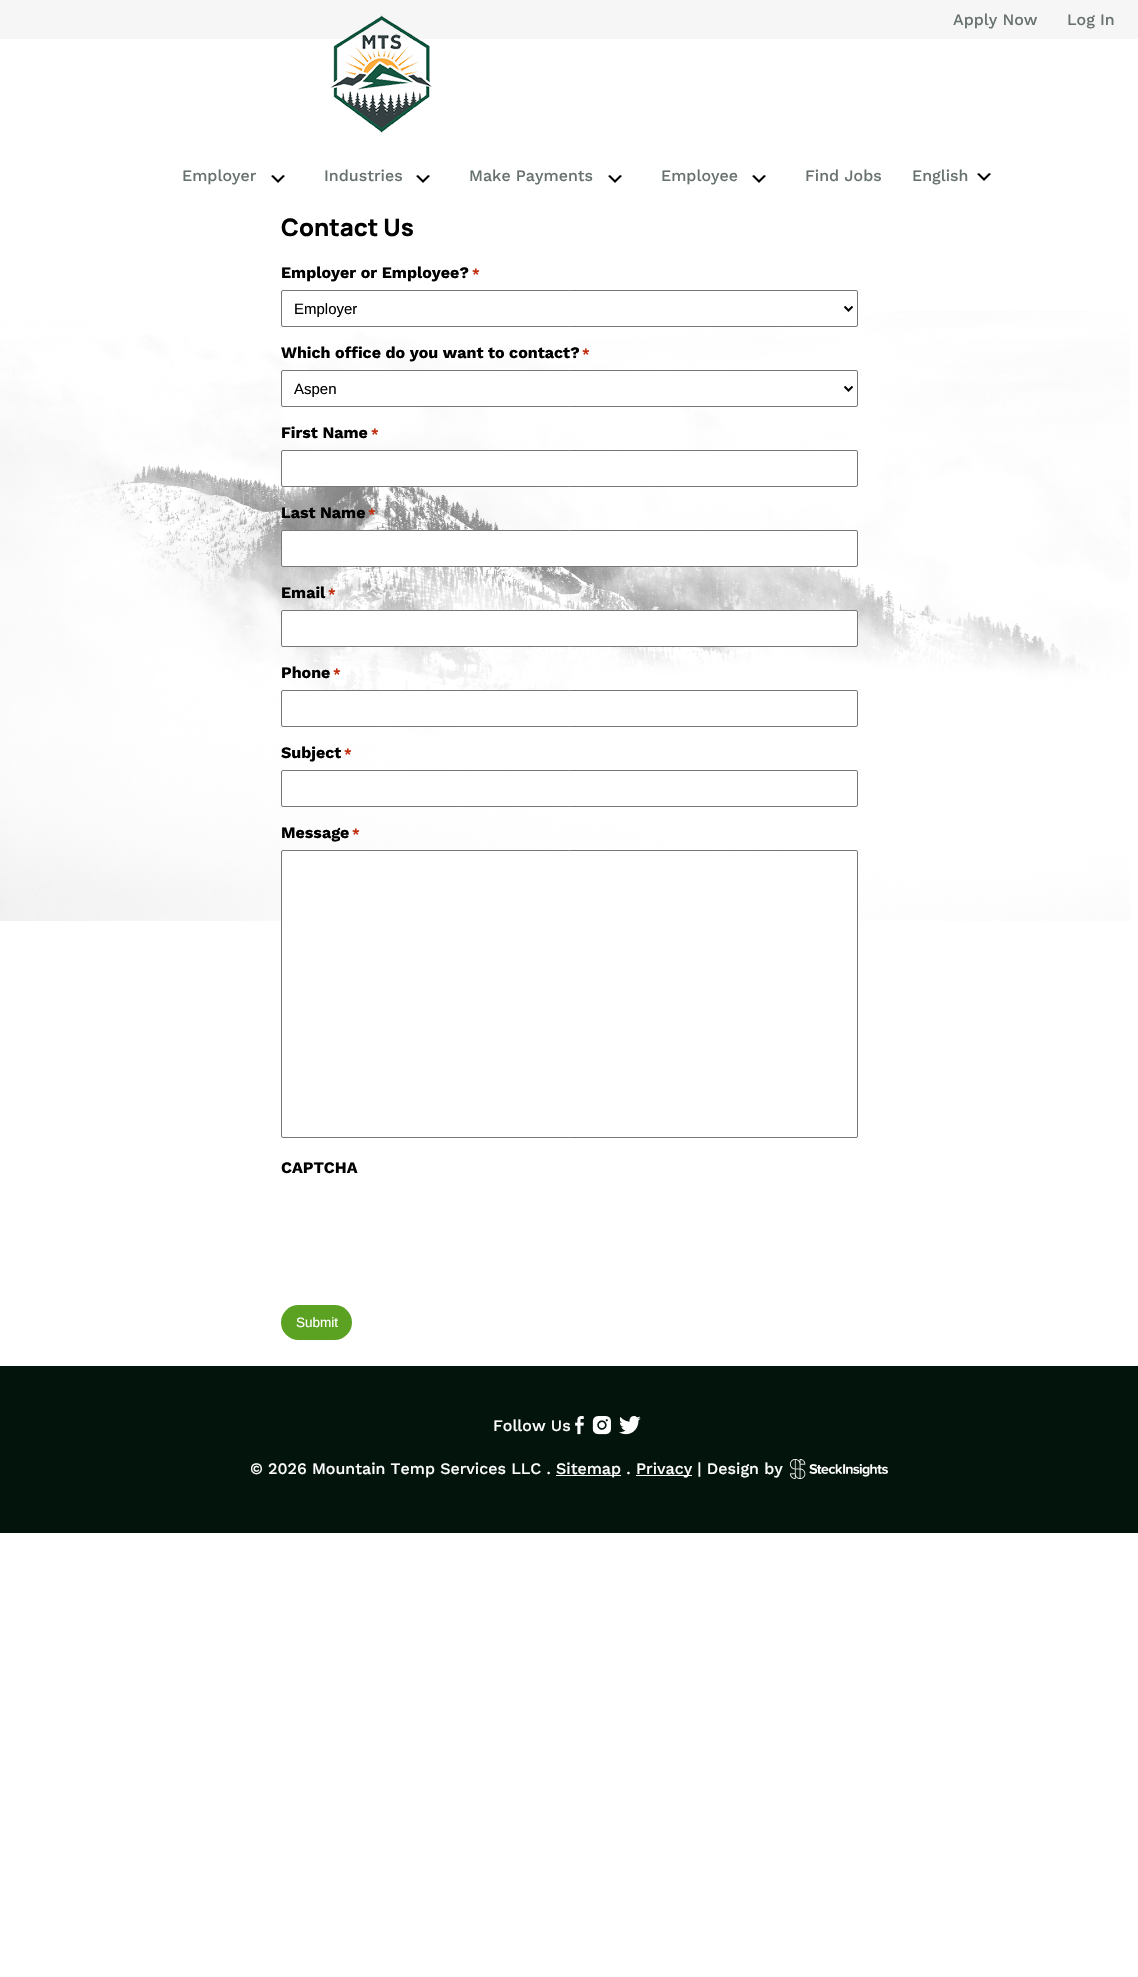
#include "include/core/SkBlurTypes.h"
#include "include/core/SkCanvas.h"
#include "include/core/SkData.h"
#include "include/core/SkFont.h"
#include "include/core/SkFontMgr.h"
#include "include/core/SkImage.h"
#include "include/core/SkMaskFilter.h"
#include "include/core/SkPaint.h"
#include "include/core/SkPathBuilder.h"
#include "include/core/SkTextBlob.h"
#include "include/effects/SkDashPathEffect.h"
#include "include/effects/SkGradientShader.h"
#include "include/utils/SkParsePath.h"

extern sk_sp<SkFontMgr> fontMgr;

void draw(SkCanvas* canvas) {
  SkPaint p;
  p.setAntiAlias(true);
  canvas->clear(SK_ColorWHITE);
  canvas->drawImageRect(SkImages::DeferredFromEncodedData(SkData::MakeFromFileName("images/1.png")), SkRect::MakeLTRB(0, 311, 1130, 921), SkSamplingOptions());
  p.setColor(SkColorSetRGB(247, 246, 246));
  canvas->drawRect(SkRect::MakeLTRB(0, 0, 1138, 39), p);
  canvas->drawImageRect(SkImages::DeferredFromEncodedData(SkData::MakeFromFileName("images/2.png")), SkRect::MakeLTRB(330, 15, 432, 133), SkSamplingOptions());
  canvas->drawImageRect(SkImages::DeferredFromEncodedData(SkData::MakeFromFileName("images/3.png")), SkRect::MakeLTRB(271, 175, 285, 183), SkSamplingOptions());
  canvas->drawImageRect(SkImages::DeferredFromEncodedData(SkData::MakeFromFileName("images/3.png")), SkRect::MakeLTRB(416, 175, 430, 183), SkSamplingOptions());
  canvas->drawImageRect(SkImages::DeferredFromEncodedData(SkData::MakeFromFileName("images/3.png")), SkRect::MakeLTRB(608, 175, 622, 183), SkSamplingOptions());
  canvas->drawImageRect(SkImages::DeferredFromEncodedData(SkData::MakeFromFileName("images/3.png")), SkRect::MakeLTRB(752, 175, 766, 183), SkSamplingOptions());
  canvas->drawImageRect(SkImages::DeferredFromEncodedData(SkData::MakeFromFileName("images/3.png")), SkRect::MakeLTRB(977, 173, 991, 181), SkSamplingOptions());
  p.setColor(SK_ColorWHITE);
  canvas->drawRoundRect(SkRect::MakeLTRB(281.5f, 290.5f, 857.5f, 326.5f), 1.5f, 1.5f, p);
  p.setStyle(SkPaint::kStroke_Style);
  p.setStrokeWidth(1);
  p.setColor(SkColorSetRGB(118, 118, 118));
  canvas->drawRoundRect(SkRect::MakeLTRB(281.5f, 290.5f, 857.5f, 326.5f), 1.5f, 1.5f, p);
  p.setStrokeWidth(2);
  p.setColor(SK_ColorBLACK);
  canvas->drawPath(SkPathBuilder().moveTo(844.5f, 306.5f).lineTo(848.5f, 310.5f).lineTo(852.5f, 306.5f).detach(), p);
  p.setStyle(SkPaint::kFill_Style);
  p.setColor(SK_ColorWHITE);
  canvas->drawRoundRect(SkRect::MakeLTRB(281.5f, 370.5f, 857.5f, 406.5f), 1.5f, 1.5f, p);
  p.setStyle(SkPaint::kStroke_Style);
  p.setStrokeWidth(1);
  p.setColor(SkColorSetRGB(118, 118, 118));
  canvas->drawRoundRect(SkRect::MakeLTRB(281.5f, 370.5f, 857.5f, 406.5f), 1.5f, 1.5f, p);
  p.setStrokeWidth(2);
  p.setColor(SK_ColorBLACK);
  canvas->drawPath(SkPathBuilder().moveTo(844.5f, 386.5f).lineTo(848.5f, 390.5f).lineTo(852.5f, 386.5f).detach(), p);
  p.setStyle(SkPaint::kFill_Style);
  p.setColor(SK_ColorWHITE);
  canvas->drawRoundRect(SkRect::MakeLTRB(281.5f, 450.5f, 857.5f, 486.5f), 1.5f, 1.5f, p);
  p.setStyle(SkPaint::kStroke_Style);
  p.setStrokeWidth(1);
  p.setColor(SkColorSetRGB(118, 118, 118));
  canvas->drawRoundRect(SkRect::MakeLTRB(281.5f, 450.5f, 857.5f, 486.5f), 1.5f, 1.5f, p);
  p.setStyle(SkPaint::kFill_Style);
  p.setColor(SK_ColorWHITE);
  canvas->drawRoundRect(SkRect::MakeLTRB(281.5f, 530.5f, 857.5f, 566.5f), 1.5f, 1.5f, p);
  p.setStyle(SkPaint::kStroke_Style);
  p.setColor(SkColorSetRGB(118, 118, 118));
  canvas->drawRoundRect(SkRect::MakeLTRB(281.5f, 530.5f, 857.5f, 566.5f), 1.5f, 1.5f, p);
  p.setStyle(SkPaint::kFill_Style);
  p.setColor(SK_ColorWHITE);
  canvas->drawRoundRect(SkRect::MakeLTRB(281.5f, 610.5f, 857.5f, 646.5f), 1.5f, 1.5f, p);
  p.setStyle(SkPaint::kStroke_Style);
  p.setColor(SkColorSetRGB(118, 118, 118));
  canvas->drawRoundRect(SkRect::MakeLTRB(281.5f, 610.5f, 857.5f, 646.5f), 1.5f, 1.5f, p);
  p.setStyle(SkPaint::kFill_Style);
  p.setColor(SK_ColorWHITE);
  canvas->drawRoundRect(SkRect::MakeLTRB(281.5f, 690.5f, 857.5f, 726.5f), 1.5f, 1.5f, p);
  p.setStyle(SkPaint::kStroke_Style);
  p.setColor(SkColorSetRGB(118, 118, 118));
  canvas->drawRoundRect(SkRect::MakeLTRB(281.5f, 690.5f, 857.5f, 726.5f), 1.5f, 1.5f, p);
  p.setStyle(SkPaint::kFill_Style);
  p.setColor(SK_ColorWHITE);
  canvas->drawRoundRect(SkRect::MakeLTRB(281.5f, 770.5f, 857.5f, 806.5f), 1.5f, 1.5f, p);
  p.setStyle(SkPaint::kStroke_Style);
  p.setColor(SkColorSetRGB(118, 118, 118));
  canvas->drawRoundRect(SkRect::MakeLTRB(281.5f, 770.5f, 857.5f, 806.5f), 1.5f, 1.5f, p);
  p.setStyle(SkPaint::kFill_Style);
  p.setColor(SK_ColorWHITE);
  canvas->drawRoundRect(SkRect::MakeLTRB(281.5f, 850.5f, 857.5f, 1137.5f), 1.5f, 1.5f, p);
  p.setStyle(SkPaint::kStroke_Style);
  p.setColor(SkColorSetRGB(118, 118, 118));
  canvas->drawRoundRect(SkRect::MakeLTRB(281.5f, 850.5f, 857.5f, 1137.5f), 1.5f, 1.5f, p);
  p.setStyle(SkPaint::kFill_Style);
  p.setColor(SkColorSetRGB(92, 162, 34));
  canvas->drawRoundRect(SkRect::MakeLTRB(281, 1305, 352, 1340), 17.5f, 17.5f, p);
  p.setColor(SkColorSetRGB(2, 20, 12));
  canvas->drawRect(SkRect::MakeLTRB(0, 1366, 1138, 1533), p);
  canvas->drawImageRect(SkImages::DeferredFromEncodedData(SkData::MakeFromFileName("images/4.png")), SkRect::MakeLTRB(575, 1416, 584, 1435), SkSamplingOptions());
  canvas->drawImageRect(SkImages::DeferredFromEncodedData(SkData::MakeFromFileName("images/5.png")), SkRect::MakeLTRB(592, 1416, 611, 1435), SkSamplingOptions());
  canvas->drawImageRect(SkImages::DeferredFromEncodedData(SkData::MakeFromFileName("images/6.png")), SkRect::MakeLTRB(619, 1416, 641, 1435), SkSamplingOptions());
  p.setColor(SK_ColorWHITE);
  canvas->drawRect(SkRect::MakeLTRB(556, 1475, 621, 1476), p);
  canvas->drawRect(SkRect::MakeLTRB(636, 1475, 692, 1476), p);
  canvas->drawImageRect(SkImages::DeferredFromEncodedData(SkData::MakeFromFileName("images/7.png")), SkRect::MakeLTRB(790, 1459, 888, 1479), SkSamplingOptions());
  SkFont font1(fontMgr->matchFamilyStyle("Work Sans", SkFontStyle(500, SkFontStyle::kNormal_Width, SkFontStyle::kUpright_Slant)), 16);
  font1.setSubpixel(true);
  p.setColor(SkColorSetRGB(103, 114, 109));
  canvas->drawString("Apply Now", 953, 25, font1, p);
  canvas->drawString("Log In", 1067, 25, font1, p);
  canvas->drawString("Employer", 182, 181, font1, p);
  canvas->drawString("Industries", 324, 181, font1, p);
  canvas->drawString("Make Payments", 469, 181, font1, p);
  canvas->drawString("Employee", 661, 181, font1, p);
  canvas->drawString("Find Jobs", 805, 181, font1, p);
  canvas->drawString("English", 912, 181, font1, p);
  SkFont font2(fontMgr->matchFamilyStyle("Manrope", SkFontStyle(800, SkFontStyle::kNormal_Width, SkFontStyle::kUpright_Slant)), 24);
  font2.setSubpixel(true);
  p.setColor(SK_ColorBLACK);
  canvas->drawString("Contact Us", 281, 236, font2, p);
  SkFont font3(fontMgr->matchFamilyStyle("Work Sans", SkFontStyle::Bold()), 16);
  font3.setSubpixel(true);
  canvas->drawString("Employer or Employee?", 281, 278, font3, p);
  SkFont font4(fontMgr->matchFamilyStyle("Work Sans", SkFontStyle::Bold()), 13);
  font4.setSubpixel(true);
  p.setColor(SkColorSetRGB(192, 43, 10));
  canvas->drawString("*", 472, 278, font4, p);
  SkFont font5(fontMgr->matchFamilyStyle("Liberation Sans", SkFontStyle::Normal()), 15);
  font5.setSubpixel(true);
  p.setColor(SK_ColorBLACK);
  canvas->drawString("Employer", 294, 314, font5, p);
  canvas->drawString("Which office do you want to contact?", 281, 358, font3, p);
  p.setColor(SkColorSetRGB(192, 43, 10));
  canvas->drawString("*", 582, 358, font4, p);
  p.setColor(SK_ColorBLACK);
  canvas->drawString("Aspen", 294, 394, font5, p);
  canvas->drawString("First Name", 281, 438, font3, p);
  p.setColor(SkColorSetRGB(192, 43, 10));
  canvas->drawString("*", 371, 438, font4, p);
  p.setColor(SK_ColorBLACK);
  canvas->drawString("Last Name", 281, 518, font3, p);
  p.setColor(SkColorSetRGB(192, 43, 10));
  canvas->drawString("*", 368, 518, font4, p);
  p.setColor(SK_ColorBLACK);
  canvas->drawString("Email", 281, 598, font3, p);
  p.setColor(SkColorSetRGB(192, 43, 10));
  canvas->drawString("*", 328, 598, font4, p);
  p.setColor(SK_ColorBLACK);
  canvas->drawString("Phone", 281, 678, font3, p);
  p.setColor(SkColorSetRGB(192, 43, 10));
  canvas->drawString("*", 333, 678, font4, p);
  p.setColor(SK_ColorBLACK);
  canvas->drawString("Subject", 281, 758, font3, p);
  p.setColor(SkColorSetRGB(192, 43, 10));
  canvas->drawString("*", 344, 758, font4, p);
  p.setColor(SK_ColorBLACK);
  canvas->drawString("Message", 281, 838, font3, p);
  p.setColor(SkColorSetRGB(192, 43, 10));
  canvas->drawString("*", 352, 838, font4, p);
  p.setColor(SK_ColorBLACK);
  canvas->drawString("CAPTCHA", 281, 1173, font3, p);
  SkFont font6(fontMgr->matchFamilyStyle("Liberation Sans", SkFontStyle::Normal()), 13.5f);
  font6.setSubpixel(true);
  p.setColor(SK_ColorWHITE);
  canvas->drawString("Submit", 296, 1327, font6, p);
  canvas->drawString("Follow Us", 493, 1431, font1, p);
  canvas->drawString("© 2026 Mountain Temp Services LLC .", 250, 1474, font1, p);
  canvas->drawString("Sitemap .", 556, 1474, font1, p);
  canvas->drawString("Privacy | Design by", 636, 1474, font1, p);
}
